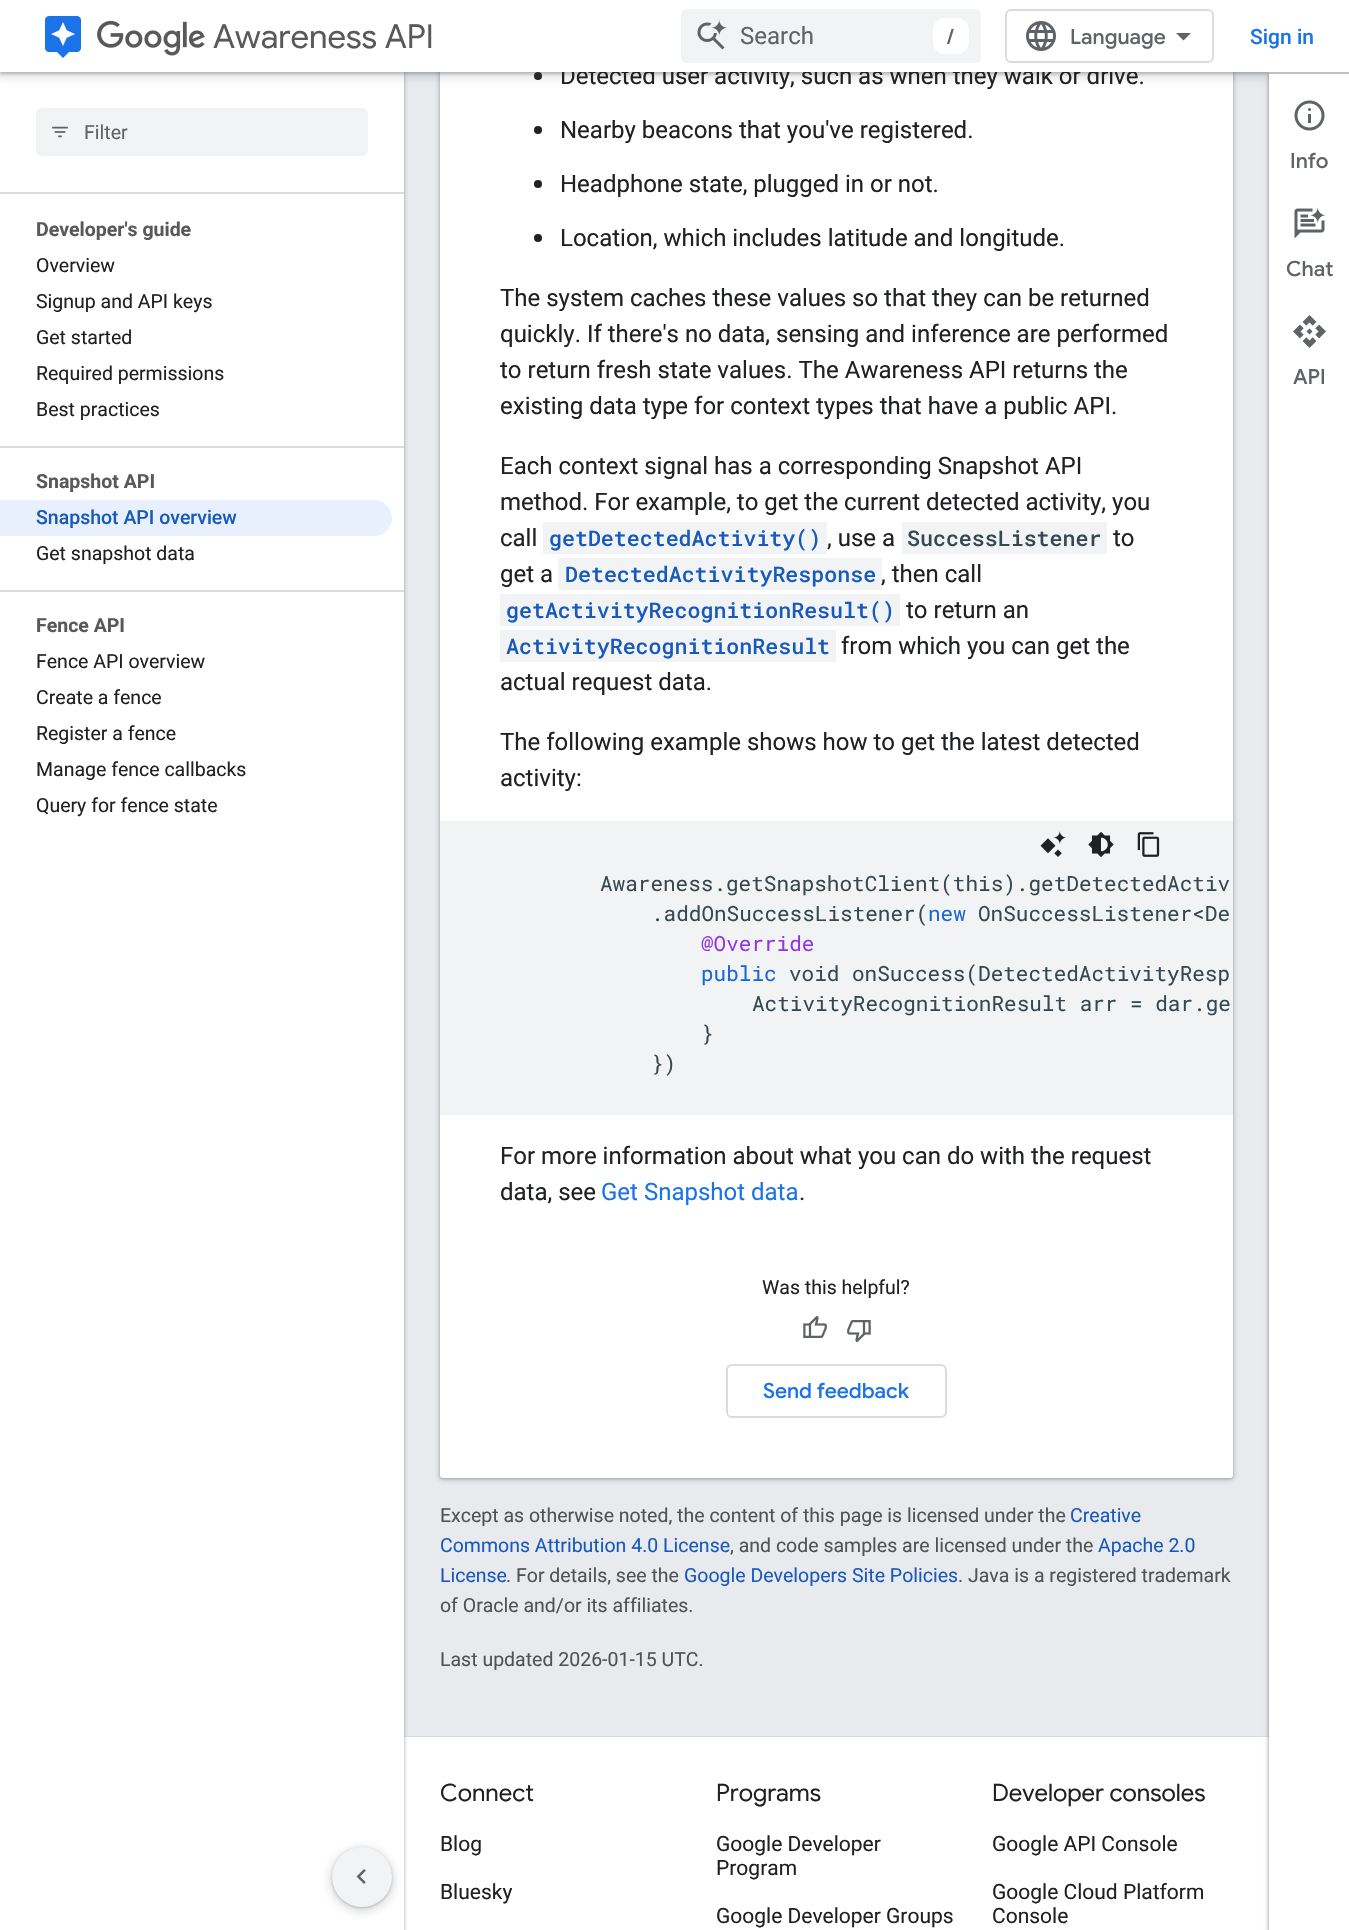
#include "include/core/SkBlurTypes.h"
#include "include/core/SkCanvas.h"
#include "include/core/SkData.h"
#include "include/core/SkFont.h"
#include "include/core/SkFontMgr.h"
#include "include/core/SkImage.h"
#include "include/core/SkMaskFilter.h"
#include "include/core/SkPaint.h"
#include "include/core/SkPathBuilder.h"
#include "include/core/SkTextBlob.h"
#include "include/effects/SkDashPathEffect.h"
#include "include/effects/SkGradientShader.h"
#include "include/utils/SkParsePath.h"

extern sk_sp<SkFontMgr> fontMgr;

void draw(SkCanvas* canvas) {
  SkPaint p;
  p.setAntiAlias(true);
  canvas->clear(SkColorSetRGB(232, 234, 237));
  p.setColor(SkColorSetRGB(218, 220, 224));
  canvas->drawRect(SkRect::MakeLTRB(404, 1736, 1269, 1737), p);
  p.setColor(SK_ColorWHITE);
  canvas->drawRect(SkRect::MakeLTRB(404, 1737, 1269, 1930), p);
  p.setColor(SkColorSetARGB(38, 60, 64, 67));
  p.setMaskFilter(SkMaskFilter::MakeBlur(kNormal_SkBlurStyle, 2));
  canvas->drawRect(SkRect::MakeLTRB(-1, 0, 405, 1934), p);
  p.setMaskFilter(nullptr);
  p.setColor(SkColorSetARGB(77, 60, 64, 67));
  p.setMaskFilter(SkMaskFilter::MakeBlur(kNormal_SkBlurStyle, 1.5f));
  canvas->drawRect(SkRect::MakeLTRB(0, 2, 404, 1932), p);
  p.setMaskFilter(nullptr);
  p.setColor(SK_ColorWHITE);
  canvas->drawRect(SkRect::MakeLTRB(0, 72, 404, 1930), p);
  p.setColor(SkColorSetARGB(38, 60, 64, 67));
  p.setMaskFilter(SkMaskFilter::MakeBlur(kNormal_SkBlurStyle, 2));
  canvas->drawRoundRect(SkRect::MakeLTRB(438, -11, 1235, 1481), 5, 5, p);
  p.setMaskFilter(nullptr);
  p.setColor(SkColorSetARGB(77, 60, 64, 67));
  p.setMaskFilter(SkMaskFilter::MakeBlur(kNormal_SkBlurStyle, 1.5f));
  canvas->drawRoundRect(SkRect::MakeLTRB(440, -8, 1233, 1479), 3, 3, p);
  p.setMaskFilter(nullptr);
  p.setColor(SK_ColorWHITE);
  canvas->drawRoundRect(SkRect::MakeLTRB(440, -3, 1233, 1478), 3, 3, p);
  p.setColor(SkColorSetRGB(32, 33, 36));
  canvas->drawCircle(538, 76, 4, p);
  p.setColor(SkColorSetARGB(38, 60, 64, 67));
  p.setMaskFilter(SkMaskFilter::MakeBlur(kNormal_SkBlurStyle, 4.5f));
  canvas->drawRect(SkRect::MakeLTRB(-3, 0, 1272, 78), p);
  p.setMaskFilter(nullptr);
  p.setColor(SkColorSetARGB(77, 60, 64, 67));
  p.setMaskFilter(SkMaskFilter::MakeBlur(kNormal_SkBlurStyle, 1.5f));
  canvas->drawRect(SkRect::MakeLTRB(0, 2, 1269, 74), p);
  p.setMaskFilter(nullptr);
  p.setColor(SkColorSetRGB(218, 220, 224));
  canvas->drawRect(SkRect::MakeLTRB(0, 192, 404, 194), p);
  p.setColor(SkColorSetRGB(241, 243, 244));
  canvas->drawRoundRect(SkRect::MakeLTRB(36, 108, 368, 156), 6, 6, p);
  canvas->drawImageRect(SkImages::DeferredFromEncodedData(SkData::MakeFromFileName("images/5.png")), SkRect::MakeLTRB(52, 126, 68, 138), SkSamplingOptions());
  p.setColor(SkColorSetRGB(218, 220, 224));
  canvas->drawRect(SkRect::MakeLTRB(0, 446, 404, 448), p);
  p.setColor(SkColorSetRGB(232, 240, 254));
  canvas->drawPath(SkPathBuilder().moveTo(0, 500).lineTo(374, 500).cubicTo(384, 500, 392, 508, 392, 518).cubicTo(392, 528, 384, 536, 374, 536).lineTo(0, 536).close().detach(), p);
  p.setColor(SkColorSetRGB(218, 220, 224));
  canvas->drawRect(SkRect::MakeLTRB(0, 590, 404, 592), p);
  p.setColor(SkColorSetRGB(32, 33, 36));
  canvas->drawCircle(538, 130, 4, p);
  canvas->drawCircle(538, 184, 4, p);
  canvas->drawCircle(538, 238, 4, p);
  p.setColor(SkColorSetRGB(241, 243, 244));
  canvas->drawRect(SkRect::MakeLTRB(543, 522, 827, 554), p);
  canvas->drawRect(SkRect::MakeLTRB(902, 522, 1107, 554), p);
  canvas->drawRect(SkRect::MakeLTRB(558, 558, 882, 590), p);
  canvas->drawRect(SkRect::MakeLTRB(500, 594, 900, 626), p);
  canvas->drawRect(SkRect::MakeLTRB(500, 630, 836, 662), p);
  canvas->drawRect(SkRect::MakeLTRB(440, 821, 1233, 1115), p);
  canvas->drawImageRect(SkImages::DeferredFromEncodedData(SkData::MakeFromFileName("images/6.png")), SkRect::MakeLTRB(1040, 831, 1067, 857), SkSamplingOptions());
  canvas->drawImageRect(SkImages::DeferredFromEncodedData(SkData::MakeFromFileName("images/7.png")), SkRect::MakeLTRB(1088, 831, 1114, 858), SkSamplingOptions());
  canvas->drawImageRect(SkImages::DeferredFromEncodedData(SkData::MakeFromFileName("images/8.png")), SkRect::MakeLTRB(1137, 832, 1160, 857), SkSamplingOptions());
  canvas->drawImageRect(SkImages::DeferredFromEncodedData(SkData::MakeFromFileName("images/9.png")), SkRect::MakeLTRB(803, 1316, 827, 1338), SkSamplingOptions());
  canvas->drawImageRect(SkImages::DeferredFromEncodedData(SkData::MakeFromFileName("images/10.png")), SkRect::MakeLTRB(847, 1320, 871, 1343), SkSamplingOptions());
  p.setStyle(SkPaint::kStroke_Style);
  p.setStrokeWidth(2);
  p.setColor(SkColorSetRGB(218, 220, 224));
  canvas->drawRoundRect(SkRect::MakeLTRB(727, 1365, 946, 1417), 5, 5, p);
  p.setStyle(SkPaint::kFill_Style);
  p.setColor(SkColorSetARGB(38, 0, 0, 0));
  p.setMaskFilter(SkMaskFilter::MakeBlur(kNormal_SkBlurStyle, 2));
  canvas->drawRect(SkRect::MakeLTRB(1268, 72, 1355, 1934), p);
  p.setMaskFilter(nullptr);
  p.setColor(SkColorSetARGB(77, 0, 0, 0));
  p.setMaskFilter(SkMaskFilter::MakeBlur(kNormal_SkBlurStyle, 1.5f));
  canvas->drawRect(SkRect::MakeLTRB(1269, 74, 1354, 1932), p);
  p.setMaskFilter(nullptr);
  p.setColor(SK_ColorWHITE);
  canvas->drawRect(SkRect::MakeLTRB(1269, 74, 1349, 1930), p);
  p.setColor(SkColorSetRGB(189, 193, 198));
  canvas->drawRect(SkRect::MakeLTRB(1269, 72, 1349, 74), p);
  canvas->drawImageRect(SkImages::DeferredFromEncodedData(SkData::MakeFromFileName("images/11.png")), SkRect::MakeLTRB(1294, 100, 1325, 131), SkSamplingOptions());
  canvas->drawImageRect(SkImages::DeferredFromEncodedData(SkData::MakeFromFileName("images/12.png")), SkRect::MakeLTRB(1294, 207, 1326, 239), SkSamplingOptions());
  canvas->drawImageRect(SkImages::DeferredFromEncodedData(SkData::MakeFromFileName("images/13.png")), SkRect::MakeLTRB(1293, 315, 1326, 348), SkSamplingOptions());
  p.setColor(SkColorSetARGB(38, 60, 64, 67));
  p.setMaskFilter(SkMaskFilter::MakeBlur(kNormal_SkBlurStyle, 4.5f));
  canvas->drawRoundRect(SkRect::MakeLTRB(329, 1847, 395, 1913), 33, 33, p);
  p.setMaskFilter(nullptr);
  p.setColor(SkColorSetARGB(77, 60, 64, 67));
  p.setMaskFilter(SkMaskFilter::MakeBlur(kNormal_SkBlurStyle, 1.5f));
  canvas->drawRoundRect(SkRect::MakeLTRB(332, 1848, 392, 1908), 30, 30, p);
  p.setMaskFilter(nullptr);
  p.setColor(SkColorSetRGB(241, 243, 244));
  canvas->drawCircle(362, 1877, 30, p);
  canvas->drawImageRect(SkImages::DeferredFromEncodedData(SkData::MakeFromFileName("images/14.png")), SkRect::MakeLTRB(356, 1869, 366, 1884), SkSamplingOptions());
  SkFont font1(fontMgr->matchFamilyStyle("Roboto", SkFontStyle::Normal()), 19.5f);
  font1.setSubpixel(true);
  p.setColor(SkColorSetRGB(95, 99, 104));
  canvas->drawString("Filter", 84, 139, font1, p);
  SkFont font2(fontMgr->matchFamilyStyle("Roboto", SkFontStyle::Bold()), 19.5f);
  font2.setSubpixel(true);
  p.setColor(SkColorSetRGB(89, 89, 89));
  canvas->drawString("Developer's guide", 36, 236, font2, p);
  p.setColor(SkColorSetRGB(32, 33, 36));
  canvas->drawString("Overview", 36, 272, font1, p);
  canvas->drawString("Signup and API keys", 36, 308, font1, p);
  canvas->drawString("Get started", 36, 344, font1, p);
  canvas->drawString("Required permissions", 36, 380, font1, p);
  canvas->drawString("Best practices", 36, 416, font1, p);
  p.setColor(SkColorSetRGB(89, 89, 89));
  canvas->drawString("Snapshot API", 36, 488, font2, p);
  SkFont font3(fontMgr->matchFamilyStyle("Roboto", SkFontStyle(500, SkFontStyle::kNormal_Width, SkFontStyle::kUpright_Slant)), 19.5f);
  font3.setSubpixel(true);
  p.setColor(SkColorSetRGB(24, 90, 188));
  canvas->drawString("Snapshot API overview", 36, 524, font3, p);
  p.setColor(SkColorSetRGB(32, 33, 36));
  canvas->drawString("Get snapshot data", 36, 560, font1, p);
  p.setColor(SkColorSetRGB(89, 89, 89));
  canvas->drawString("Fence API", 36, 632, font2, p);
  p.setColor(SkColorSetRGB(32, 33, 36));
  canvas->drawString("Fence API overview", 36, 668, font1, p);
  canvas->drawString("Create a fence", 36, 704, font1, p);
  canvas->drawString("Register a fence", 36, 740, font1, p);
  canvas->drawString("Manage fence callbacks", 36, 776, font1, p);
  canvas->drawString("Query for fence state", 36, 812, font1, p);
  SkFont font4(fontMgr->matchFamilyStyle("Roboto", SkFontStyle::Normal()), 24);
  font4.setSubpixel(true);
  canvas->drawString("Detected user activity, such as when they walk or drive.", 560, 84, font4, p);
  p.setColor(SK_ColorWHITE);
  canvas->drawRect(SkRect::MakeLTRB(0, 0, 1349, 72), p);
  p.setColor(SkColorSetRGB(241, 243, 244));
  canvas->drawRoundRect(SkRect::MakeLTRB(681, 9, 981, 63), 6, 6, p);
  p.setColor(SK_ColorWHITE);
  canvas->drawRoundRect(SkRect::MakeLTRB(933, 18, 969, 54), 12, 12, p);
  SkFont font5(fontMgr->matchFamilyStyle("Google Sans", SkFontStyle(500, SkFontStyle::kNormal_Width, SkFontStyle::kUpright_Slant)), 21);
  font5.setSubpixel(true);
  p.setColor(SkColorSetRGB(95, 99, 104));
  canvas->drawString("/", 947, 44, font5, p);
  canvas->drawImageRect(SkImages::DeferredFromEncodedData(SkData::MakeFromFileName("images/3.png")), SkRect::MakeLTRB(697, 20, 727, 50), SkSamplingOptions());
  canvas->drawString("Search", 740, 44, font4, p);
  p.setStyle(SkPaint::kStroke_Style);
  p.setColor(SkColorSetRGB(218, 220, 224));
  canvas->drawRoundRect(SkRect::MakeLTRB(1006, 10, 1213, 62), 5, 5, p);
  p.setStyle(SkPaint::kFill_Style);
  p.setColor(SkColorSetRGB(95, 99, 104));
  canvas->drawPath(SkPathBuilder().moveTo(1183.5f, 40.5f).lineTo(1176, 33).lineTo(1191, 33).close().detach(), p);
  canvas->drawString("Language", 1070, 44, font5, p);
  canvas->drawImageRect(SkImages::DeferredFromEncodedData(SkData::MakeFromFileName("images/4.png")), SkRect::MakeLTRB(1026, 21, 1056, 51), SkSamplingOptions());
  canvas->drawImageRect(SkImages::DeferredFromEncodedData(SkData::MakeFromFileName("images/2.png")), SkRect::MakeLTRB(97, 20, 205, 56), SkSamplingOptions());
  SkFont font6(fontMgr->matchFamilyStyle("Roboto", SkFontStyle(500, SkFontStyle::kNormal_Width, SkFontStyle::kUpright_Slant)), 21);
  font6.setSubpixel(true);
  p.setColor(SkColorSetRGB(26, 115, 232));
  canvas->drawString("Sign in", 1250, 44, font6, p);
  SkFont font7(fontMgr->matchFamilyStyle("Google Sans", SkFontStyle::Normal()), 33);
  font7.setSubpixel(true);
  p.setColor(SkColorSetRGB(89, 89, 89));
  canvas->drawString("Awareness API", 213, 48, font7, p);
  canvas->drawImageRect(SkImages::DeferredFromEncodedData(SkData::MakeFromFileName("images/1.png")), SkRect::MakeLTRB(45, 16, 81, 58), SkSamplingOptions());
  p.setColor(SkColorSetRGB(32, 33, 36));
  canvas->drawString("Nearby beacons that you've registered.", 560, 138, font4, p);
  canvas->drawString("Headphone state, plugged in or not.", 560, 192, font4, p);
  canvas->drawString("Location, which includes latitude and longitude.", 560, 246, font4, p);
  canvas->drawString("The system caches these values so that they can be returned", 500, 306, font4, p);
  canvas->drawString("quickly. If there's no data, sensing and inference are performed", 500, 342, font4, p);
  canvas->drawString("to return fresh state values. The Awareness API returns the", 500, 378, font4, p);
  canvas->drawString("existing data type for context types that have a public API.", 500, 414, font4, p);
  canvas->drawString("Each context signal has a corresponding Snapshot API", 500, 474, font4, p);
  canvas->drawString("method. For example, to get the current detected activity, you", 500, 510, font4, p);
  canvas->drawString("call", 500, 546, font4, p);
  SkFont font8(fontMgr->matchFamilyStyle("Roboto Mono", SkFontStyle(500, SkFontStyle::kNormal_Width, SkFontStyle::kUpright_Slant)), 21.6f);
  font8.setSubpixel(true);
  p.setColor(SkColorSetRGB(24, 90, 188));
  canvas->drawString("getDetectedActivity()", 549, 546, font8, p);
  p.setColor(SkColorSetRGB(32, 33, 36));
  canvas->drawString(", use a", 827, 546, font4, p);
  p.setColor(SkColorSetRGB(55, 71, 79));
  canvas->drawString("SuccessListener", 907, 546, font8, p);
  p.setColor(SkColorSetRGB(32, 33, 36));
  canvas->drawString("to", 1113, 546, font4, p);
  canvas->drawString("get a", 500, 582, font4, p);
  p.setColor(SkColorSetRGB(24, 90, 188));
  canvas->drawString("DetectedActivityResponse", 565, 582, font8, p);
  p.setColor(SkColorSetRGB(32, 33, 36));
  canvas->drawString(", then call", 881, 582, font4, p);
  p.setColor(SkColorSetRGB(24, 90, 188));
  canvas->drawString("getActivityRecognitionResult()", 506, 618, font8, p);
  p.setColor(SkColorSetRGB(32, 33, 36));
  canvas->drawString("to return an", 906, 618, font4, p);
  p.setColor(SkColorSetRGB(24, 90, 188));
  canvas->drawString("ActivityRecognitionResult", 506, 654, font8, p);
  p.setColor(SkColorSetRGB(32, 33, 36));
  canvas->drawString("from which you can get the", 841, 654, font4, p);
  canvas->drawString("actual request data.", 500, 690, font4, p);
  canvas->drawString("The following example shows how to get the latest detected", 500, 750, font4, p);
  canvas->drawString("activity:", 500, 786, font4, p);
  SkFont font9(fontMgr->matchFamilyStyle("Roboto Mono", SkFontStyle::Normal()), 21);
  font9.setSubpixel(true);
  p.setColor(SkColorSetRGB(55, 71, 79));
  canvas->drawString("Awareness.getSnapshotClient(this).getDetectedActiv", 600, 891, font9, p);
  canvas->drawString(".addOnSuccessListener(", 651, 921, font9, p);
  p.setColor(SkColorSetRGB(25, 103, 210));
  canvas->drawString("new", 928, 921, font9, p);
  p.setColor(SkColorSetRGB(55, 71, 79));
  canvas->drawString("OnSuccessListener<De", 978, 921, font9, p);
  p.setColor(SkColorSetRGB(147, 52, 230));
  canvas->drawString("@Override", 701, 951, font9, p);
  p.setColor(SkColorSetRGB(25, 103, 210));
  canvas->drawString("public", 701, 981, font9, p);
  p.setColor(SkColorSetRGB(55, 71, 79));
  canvas->drawString("void onSuccess(DetectedActivityResp", 789, 981, font9, p);
  canvas->drawString("ActivityRecognitionResult arr = dar.ge", 752, 1011, font9, p);
  canvas->drawString("}", 701, 1041, font9, p);
  canvas->drawString("})", 651, 1071, font9, p);
  p.setColor(SkColorSetRGB(32, 33, 36));
  canvas->drawString("For more information about what you can do with the request", 500, 1164, font4, p);
  canvas->drawString("data, see", 500, 1200, font4, p);
  p.setColor(SkColorSetRGB(26, 115, 232));
  canvas->drawString("Get Snapshot data", 601, 1200, font4, p);
  p.setColor(SkColorSetRGB(32, 33, 36));
  canvas->drawString(".", 799, 1200, font4, p);
  canvas->drawString("Was this helpful?", 762, 1294, font1, p);
  p.setColor(SkColorSetRGB(26, 115, 232));
  canvas->drawString("Send feedback", 763, 1398, font5, p);
  p.setColor(SkColorSetRGB(81, 82, 83));
  canvas->drawString("Except as otherwise noted, the content of this page is licensed under the", 440, 1522, font1, p);
  p.setColor(SkColorSetRGB(24, 90, 188));
  canvas->drawString("Creative", 1070, 1522, font1, p);
  canvas->drawString("Commons Attribution 4.0 License", 440, 1552, font1, p);
  p.setColor(SkColorSetRGB(81, 82, 83));
  canvas->drawString(", and code samples are licensed under the", 730, 1552, font1, p);
  p.setColor(SkColorSetRGB(24, 90, 188));
  canvas->drawString("Apache 2.0", 1098, 1552, font1, p);
  canvas->drawString("License", 440, 1582, font1, p);
  p.setColor(SkColorSetRGB(81, 82, 83));
  canvas->drawString(". For details, see the", 506, 1582, font1, p);
  p.setColor(SkColorSetRGB(24, 90, 188));
  canvas->drawString("Google Developers Site Policies", 684, 1582, font1, p);
  p.setColor(SkColorSetRGB(81, 82, 83));
  canvas->drawString(". Java is a registered trademark", 958, 1582, font1, p);
  canvas->drawString("of Oracle and/or its affiliates.", 440, 1612, font1, p);
  canvas->drawString("Last updated 2026-01-15 UTC.", 440, 1666, font1, p);
  p.setColor(SkColorSetRGB(95, 99, 104));
  canvas->drawString("Info", 1290, 168, font5, p);
  canvas->drawString("Chat", 1286, 276, font5, p);
  canvas->drawString("API", 1293, 384, font5, p);
  SkFont font10(fontMgr->matchFamilyStyle("Google Sans", SkFontStyle::Normal()), 24);
  font10.setSubpixel(true);
  p.setColor(SkColorSetRGB(32, 33, 36));
  canvas->drawString("Connect", 440, 1801, font10, p);
  SkFont font11(fontMgr->matchFamilyStyle("Roboto", SkFontStyle::Normal()), 21);
  font11.setSubpixel(true);
  canvas->drawString("Blog", 440, 1851, font11, p);
  canvas->drawString("Bluesky", 440, 1899, font11, p);
  canvas->drawString("Programs", 716, 1801, font10, p);
  canvas->drawString("Google Developer", 716, 1851, font11, p);
  canvas->drawString("Program", 716, 1875, font11, p);
  canvas->drawString("Google Developer Groups", 716, 1923, font11, p);
  canvas->drawString("Developer consoles", 992, 1801, font10, p);
  canvas->drawString("Google API Console", 992, 1851, font11, p);
  canvas->drawString("Google Cloud Platform", 992, 1899, font11, p);
  canvas->drawString("Console", 992, 1923, font11, p);
}
